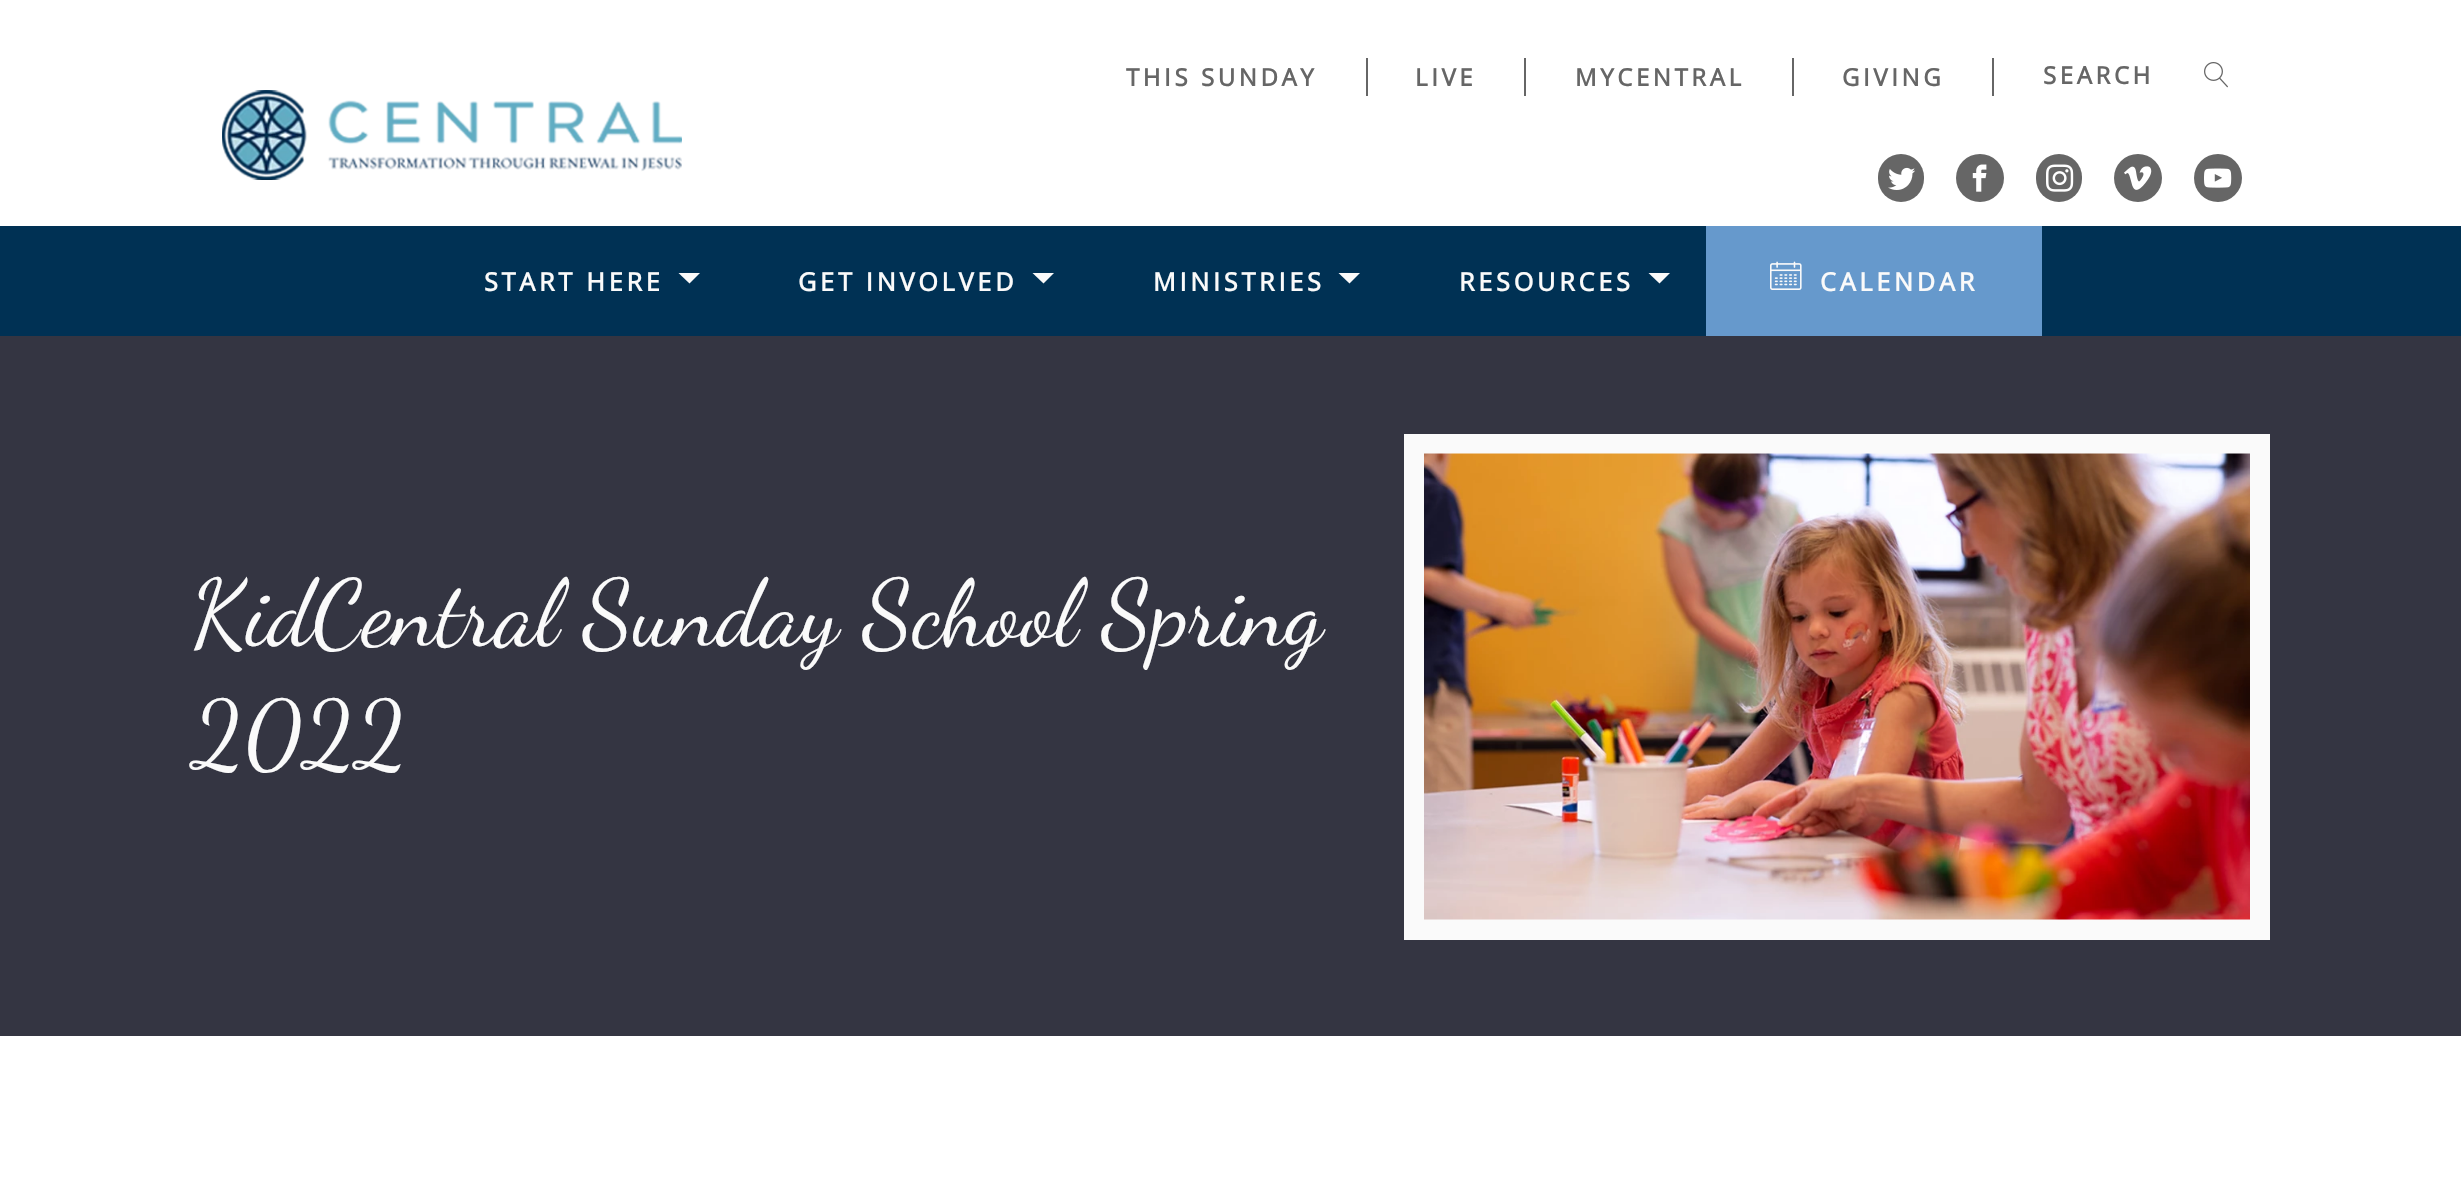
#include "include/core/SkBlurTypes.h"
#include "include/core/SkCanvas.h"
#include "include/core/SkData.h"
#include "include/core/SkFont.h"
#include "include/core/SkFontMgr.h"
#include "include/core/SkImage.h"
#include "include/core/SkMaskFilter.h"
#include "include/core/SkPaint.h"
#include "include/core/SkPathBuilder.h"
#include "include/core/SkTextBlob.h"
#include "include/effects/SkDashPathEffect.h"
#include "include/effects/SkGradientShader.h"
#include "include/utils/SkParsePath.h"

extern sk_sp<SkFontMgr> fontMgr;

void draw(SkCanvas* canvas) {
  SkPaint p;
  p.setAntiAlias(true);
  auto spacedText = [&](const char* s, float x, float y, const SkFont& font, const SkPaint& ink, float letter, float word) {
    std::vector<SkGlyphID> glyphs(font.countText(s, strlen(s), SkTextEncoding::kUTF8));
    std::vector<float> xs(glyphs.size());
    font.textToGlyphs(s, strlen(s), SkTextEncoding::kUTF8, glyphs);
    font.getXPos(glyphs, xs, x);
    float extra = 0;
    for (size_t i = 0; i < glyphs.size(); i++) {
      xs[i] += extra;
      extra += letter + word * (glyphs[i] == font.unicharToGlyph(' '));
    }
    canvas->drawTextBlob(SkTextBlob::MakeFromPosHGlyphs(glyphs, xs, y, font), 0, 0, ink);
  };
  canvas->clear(SkColorSetRGB(52, 53, 66));
  p.setColor(SK_ColorWHITE);
  canvas->drawRect(SkRect::MakeLTRB(0, 0, 2461, 226), p);
  p.setColor(SkColorSetRGB(102, 102, 102));
  canvas->drawRect(SkRect::MakeLTRB(1366, 58, 1368, 96), p);
  canvas->drawRect(SkRect::MakeLTRB(1524, 58, 1526, 96), p);
  canvas->drawRect(SkRect::MakeLTRB(1792, 58, 1794, 96), p);
  canvas->drawRect(SkRect::MakeLTRB(1992, 58, 1994, 96), p);
  canvas->drawImageRect(SkImages::DeferredFromEncodedData(SkData::MakeFromFileName("images/1.png")), SkRect::MakeLTRB(2204, 62, 2228, 88), SkSamplingOptions());
  canvas->drawImageRect(SkImages::DeferredFromEncodedData(SkData::MakeFromFileName("images/2.png")), SkRect::MakeLTRB(222, 90, 682, 180), SkSamplingOptions());
  canvas->drawRoundRect(SkRect::MakeLTRB(1878, 154, 1924, 202), 23, 23, p);
  canvas->drawImageRect(SkImages::DeferredFromEncodedData(SkData::MakeFromFileName("images/3.png")), SkRect::MakeLTRB(1888, 167, 1915, 190), SkSamplingOptions());
  canvas->drawCircle(1980, 178, 24, p);
  canvas->drawImageRect(SkImages::DeferredFromEncodedData(SkData::MakeFromFileName("images/4.png")), SkRect::MakeLTRB(1972, 164, 1987, 192), SkSamplingOptions());
  canvas->drawRoundRect(SkRect::MakeLTRB(2036, 154, 2082, 202), 23, 23, p);
  canvas->drawImageRect(SkImages::DeferredFromEncodedData(SkData::MakeFromFileName("images/5.png")), SkRect::MakeLTRB(2046, 164, 2074, 192), SkSamplingOptions());
  canvas->drawCircle(2138, 178, 24, p);
  canvas->drawImageRect(SkImages::DeferredFromEncodedData(SkData::MakeFromFileName("images/6.png")), SkRect::MakeLTRB(2124, 166, 2152, 190), SkSamplingOptions());
  canvas->drawCircle(2218, 178, 24, p);
  canvas->drawImageRect(SkImages::DeferredFromEncodedData(SkData::MakeFromFileName("images/7.png")), SkRect::MakeLTRB(2204, 168, 2232, 188), SkSamplingOptions());
  p.setColor(SkColorSetRGB(0, 49, 84));
  canvas->drawRect(SkRect::MakeLTRB(0, 226, 2461, 336), p);
  p.setColor(SkColorSetRGB(250, 250, 250));
  canvas->drawPath(SkPathBuilder().moveTo(678.5f, 273).lineTo(700, 273).lineTo(689.5f, 283.5f).close().detach(), p);
  canvas->drawPath(SkPathBuilder().moveTo(1032.5f, 273).lineTo(1054, 273).lineTo(1043.5f, 283.5f).close().detach(), p);
  canvas->drawPath(SkPathBuilder().moveTo(1338.5f, 273).lineTo(1360, 273).lineTo(1349.5f, 283.5f).close().detach(), p);
  canvas->drawPath(SkPathBuilder().moveTo(1648.5f, 273).lineTo(1670, 273).lineTo(1659.5f, 283.5f).close().detach(), p);
  p.setColor(SkColorSetRGB(102, 153, 204));
  canvas->drawRect(SkRect::MakeLTRB(1706, 226, 2042, 336), p);
  canvas->drawImageRect(SkImages::DeferredFromEncodedData(SkData::MakeFromFileName("images/8.png")), SkRect::MakeLTRB(1770, 261, 1802, 290), SkSamplingOptions());
  p.setColor(SkColorSetRGB(250, 250, 250));
  canvas->drawRect(SkRect::MakeLTRB(1404, 434, 2270, 940), p);
  canvas->drawImageRect(SkImages::DeferredFromEncodedData(SkData::MakeFromFileName("images/9.png")), SkRect::MakeLTRB(1424, 453, 2250, 920), SkSamplingOptions());
  p.setColor(SK_ColorWHITE);
  canvas->drawRect(SkRect::MakeLTRB(0, 1036, 2461, 1178), p);
  SkFont font1(fontMgr->matchFamilyStyle("Open Sans", SkFontStyle::Bold()), 24);
  font1.setSubpixel(true);
  p.setColor(SkColorSetRGB(102, 102, 102));
  spacedText("THIS SUNDAY", 1126, 86, font1, p, 3.6f, 0);
  spacedText("LIVE", 1415, 86, font1, p, 3.6f, 0);
  spacedText("MYCENTRAL", 1575, 86, font1, p, 3.6f, 0);
  spacedText("GIVING", 1842, 86, font1, p, 3.6f, 0);
  spacedText("SEARCH", 2043, 84, font1, p, 3.6f, 0);
  SkFont font2(fontMgr->matchFamilyStyle("Open Sans", SkFontStyle::Bold()), 25.25f);
  font2.setSubpixel(true);
  p.setColor(SkColorSetRGB(250, 250, 250));
  spacedText("START HERE", 484, 291, font2, p, 3.75f, 0);
  spacedText("GET INVOLVED", 798, 291, font2, p, 3.75f, 0);
  spacedText("MINISTRIES", 1153, 291, font2, p, 3.75f, 0);
  spacedText("RESOURCES", 1459, 291, font2, p, 3.75f, 0);
  spacedText("CALENDAR", 1820, 291, font2, p, 3.75f, 0);
  SkFont font3(fontMgr->matchFamilyStyle("Dancing Script", SkFontStyle::Normal()), 93.3f);
  font3.setSubpixel(true);
  canvas->drawString("KidCentral Sunday School Spring", 191, 644, font3, p);
  canvas->drawString("2022", 191, 765, font3, p);
}
